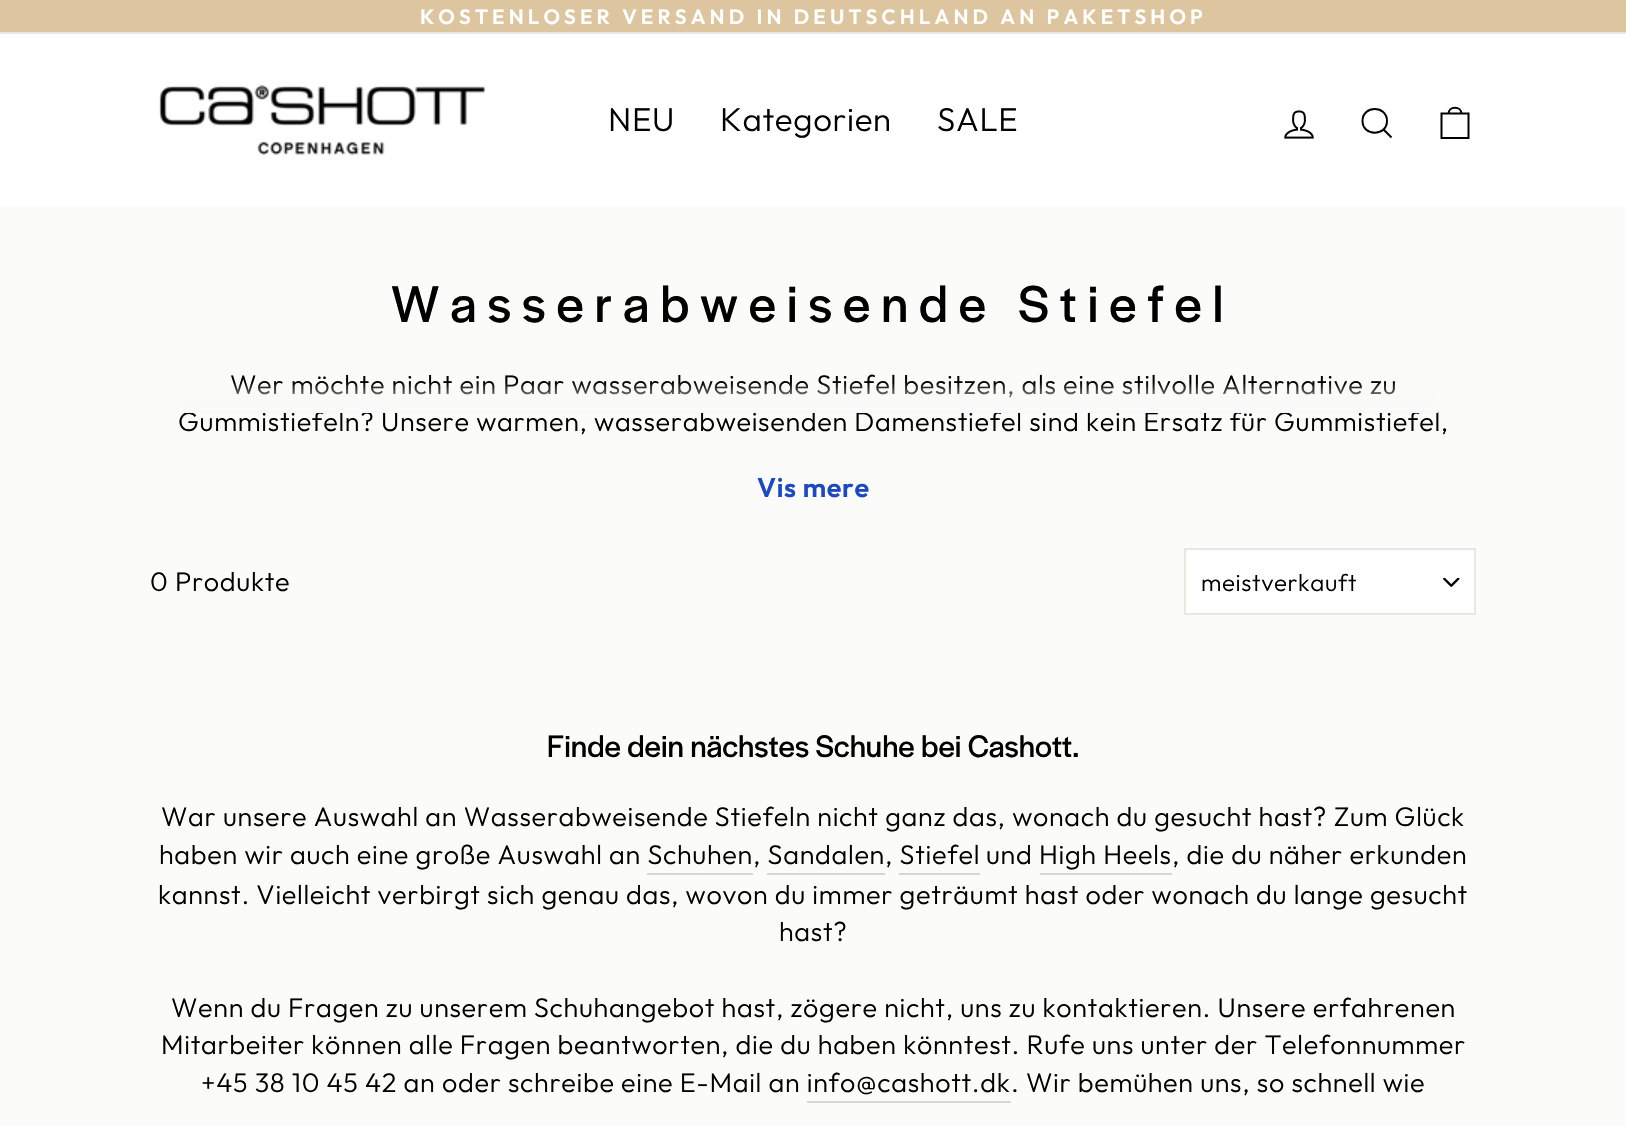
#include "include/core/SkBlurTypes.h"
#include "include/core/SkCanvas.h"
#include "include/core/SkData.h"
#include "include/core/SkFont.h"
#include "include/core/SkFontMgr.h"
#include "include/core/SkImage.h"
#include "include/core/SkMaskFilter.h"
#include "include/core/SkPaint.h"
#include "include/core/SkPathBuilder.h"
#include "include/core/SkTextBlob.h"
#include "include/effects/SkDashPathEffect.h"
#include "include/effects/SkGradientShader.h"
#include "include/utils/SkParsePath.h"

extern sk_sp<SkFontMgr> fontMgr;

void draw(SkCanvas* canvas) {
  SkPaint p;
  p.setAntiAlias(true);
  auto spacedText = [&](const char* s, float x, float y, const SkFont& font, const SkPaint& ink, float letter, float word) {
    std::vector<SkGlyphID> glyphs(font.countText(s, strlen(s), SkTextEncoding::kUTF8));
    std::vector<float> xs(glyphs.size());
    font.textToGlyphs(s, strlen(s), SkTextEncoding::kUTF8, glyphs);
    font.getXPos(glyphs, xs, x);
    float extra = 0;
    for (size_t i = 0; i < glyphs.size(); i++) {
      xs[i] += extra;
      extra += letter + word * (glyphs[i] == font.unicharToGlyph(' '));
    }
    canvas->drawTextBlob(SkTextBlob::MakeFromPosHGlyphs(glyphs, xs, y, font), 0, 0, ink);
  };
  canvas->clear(SkColorSetRGB(251, 251, 250));
  p.setColor(SkColorSetRGB(220, 197, 159));
  canvas->drawRect(SkRect::MakeLTRB(0, 0, 1626, 32), p);
  p.setColor(SK_ColorWHITE);
  canvas->drawRect(SkRect::MakeLTRB(0, 34, 1626, 206), p);
  p.setColor(SkColorSetRGB(230, 230, 230));
  canvas->drawRect(SkRect::MakeLTRB(0, 32, 1626, 34), p);
  canvas->drawImageRect(SkImages::DeferredFromEncodedData(SkData::MakeFromFileName("images/1.png")), SkRect::MakeLTRB(159, 85, 485, 155), SkSamplingOptions());
  canvas->drawImageRect(SkImages::DeferredFromEncodedData(SkData::MakeFromFileName("images/2.png")), SkRect::MakeLTRB(1284, 110, 1314, 139), SkSamplingOptions());
  p.setStyle(SkPaint::kStroke_Style);
  p.setStrokeWidth(2);
  p.setColor(SK_ColorBLACK);
  canvas->drawPath(SkPathBuilder().moveTo(1387, 121).cubicTo(1387, 136.5f, 1362.5f, 136.5f, 1362.5f, 121).cubicTo(1362.5f, 105, 1387, 105, 1387, 121).close().moveTo(1391.5f, 137.5f).lineTo(1383.5f, 129.5f).detach(), p);
  canvas->drawPath(SkPathBuilder().moveTo(1441.5f, 113.5f).lineTo(1468.5f, 113.5f).lineTo(1468.5f, 138).lineTo(1441.5f, 138).close().moveTo(1448.5f, 114).cubicTo(1448.5f, 105.5f, 1461.5f, 105.5f, 1461.5f, 114).detach(), p);
  p.setStyle(SkPaint::kFill_Style);
  p.setColor(SK_ColorWHITE);
  canvas->drawRect(SkRect::MakeLTRB(1186, 550, 1474, 613), p);
  canvas->drawImageRect(SkImages::DeferredFromEncodedData(SkData::MakeFromFileName("images/3.png")), SkRect::MakeLTRB(1443, 578, 1460, 587), SkSamplingOptions());
  p.setStyle(SkPaint::kStroke_Style);
  p.setColor(SkColorSetRGB(232, 232, 225));
  canvas->drawRect(SkRect::MakeLTRB(1185, 549, 1475, 614), p);
  p.setStyle(SkPaint::kFill_Style);
  p.setColor(SkColorSetRGB(213, 213, 213));
  canvas->drawRect(SkRect::MakeLTRB(647, 873, 753, 875), p);
  canvas->drawRect(SkRect::MakeLTRB(767, 873, 885, 875), p);
  canvas->drawRect(SkRect::MakeLTRB(899, 873, 980, 875), p);
  canvas->drawRect(SkRect::MakeLTRB(1040, 873, 1172, 875), p);
  canvas->drawRect(SkRect::MakeLTRB(807, 1101, 1011, 1103), p);
  SkFont font1(fontMgr->matchFamilyStyle("Outfit", SkFontStyle(600, SkFontStyle::kNormal_Width, SkFontStyle::kUpright_Slant)), 20.65f);
  font1.setSubpixel(true);
  p.setColor(SK_ColorWHITE);
  spacedText("KOSTENLOSER VERSAND IN DEUTSCHLAND AN PAKETSHOP", 420, 24, font1, p, 4.15f, 0);
  SkFont font2(fontMgr->matchFamilyStyle("Outfit", SkFontStyle(300, SkFontStyle::kNormal_Width, SkFontStyle::kUpright_Slant)), 33);
  font2.setSubpixel(true);
  p.setColor(SK_ColorBLACK);
  spacedText("NEU", 608, 131, font2, p, 0.68f, 0);
  spacedText("Kategorien", 720, 131, font2, p, 0.68f, 0);
  spacedText("SALE", 937, 131, font2, p, 0.68f, 0);
  SkFont font3(fontMgr->matchFamilyStyle("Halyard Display", SkFontStyle::Normal()), 54);
  font3.setSubpixel(true);
  spacedText("Wasserabweisende Stiefel", 391, 322, font3, p, 10.8f, 0);
  SkFont font4(fontMgr->matchFamilyStyle("Outfit", SkFontStyle(300, SkFontStyle::kNormal_Width, SkFontStyle::kUpright_Slant)), 27);
  font4.setSubpixel(true);
  spacedText("Wer möchte nicht ein Paar wasserabweisende Stiefel besitzen, als eine stilvolle Alternative zu", 230, 394, font4, p, 0.68f, 0);
  spacedText("Gummistiefeln? Unsere warmen, wasserabweisenden Damenstiefel sind kein Ersatz für Gummistiefel,", 178, 431, font4, p, 0.68f, 0);
  {
    const SkColor colors[] = {SkColorSetARGB(0, 249, 249, 249), SkColorSetRGB(249, 249, 249)};
    const float stops[] = {0, 1};
    const SkPoint ends[] = {{813, 382}, {813, 413}};
    p.setShader(SkGradientShader::MakeLinear(ends, colors, stops, 2, SkTileMode::kClamp));
    p.setAlpha(255);
  }
  canvas->drawRect(SkRect::MakeLTRB(184, 383, 1438, 413), p);
  SkFont font5(fontMgr->matchFamilyStyle("Outfit", SkFontStyle(600, SkFontStyle::kNormal_Width, SkFontStyle::kUpright_Slant)), 27);
  font5.setSubpixel(true);
  p.setShader(nullptr);
  p.setColor(SkColorSetRGB(28, 73, 194));
  spacedText("Vis mere", 757, 497, font5, p, 0.68f, 0);
  p.setColor(SK_ColorBLACK);
  spacedText("0 Produkte", 150, 591, font4, p, 0.68f, 0);
  SkFont font6(fontMgr->matchFamilyStyle("Outfit", SkFontStyle(300, SkFontStyle::kNormal_Width, SkFontStyle::kUpright_Slant)), 24);
  font6.setSubpixel(true);
  spacedText("meistverkauft", 1201, 591, font6, p, 0.6f, 0);
  SkFont font7(fontMgr->matchFamilyStyle("Halyard Display", SkFontStyle::Normal()), 32.4f);
  font7.setSubpixel(true);
  canvas->drawString("Finde dein nächstes Schuhe bei Cashott.", 547, 757, font7, p);
  spacedText("War unsere Auswahl an Wasserabweisende Stiefeln nicht ganz das, wonach du gesucht hast? Zum Glück", 161, 826, font4, p, 0.68f, 0);
  spacedText("haben wir auch eine große Auswahl an Schuhen", 159, 864, font4, p, 0.68f, 0);
  spacedText(", Sandalen", 753, 864, font4, p, 0.68f, 0);
  spacedText(", Stiefel", 885, 864, font4, p, 0.68f, 0);
  spacedText("und High Heels", 986, 864, font4, p, 0.68f, 0);
  spacedText(", die du näher erkunden", 1172, 864, font4, p, 0.68f, 0);
  spacedText("kannst. Vielleicht verbirgt sich genau das, wovon du immer geträumt hast oder wonach du lange gesucht", 158, 904, font4, p, 0.68f, 0);
  spacedText("hast?", 779, 941, font4, p, 0.68f, 0);
  spacedText("Wenn du Fragen zu unserem Schuhangebot hast, zögere nicht, uns zu kontaktieren. Unsere erfahrenen", 171, 1017, font4, p, 0.68f, 0);
  spacedText("Mitarbeiter können alle Fragen beantworten, die du haben könntest. Rufe uns unter der Telefonnummer", 161, 1054, font4, p, 0.68f, 0);
  spacedText("+45 38 10 45 42 an oder schreibe eine E-Mail an info@cashott.dk", 201, 1092, font4, p, 0.68f, 0);
  spacedText(". Wir bemühen uns, so schnell wie", 1011, 1092, font4, p, 0.68f, 0);
}
